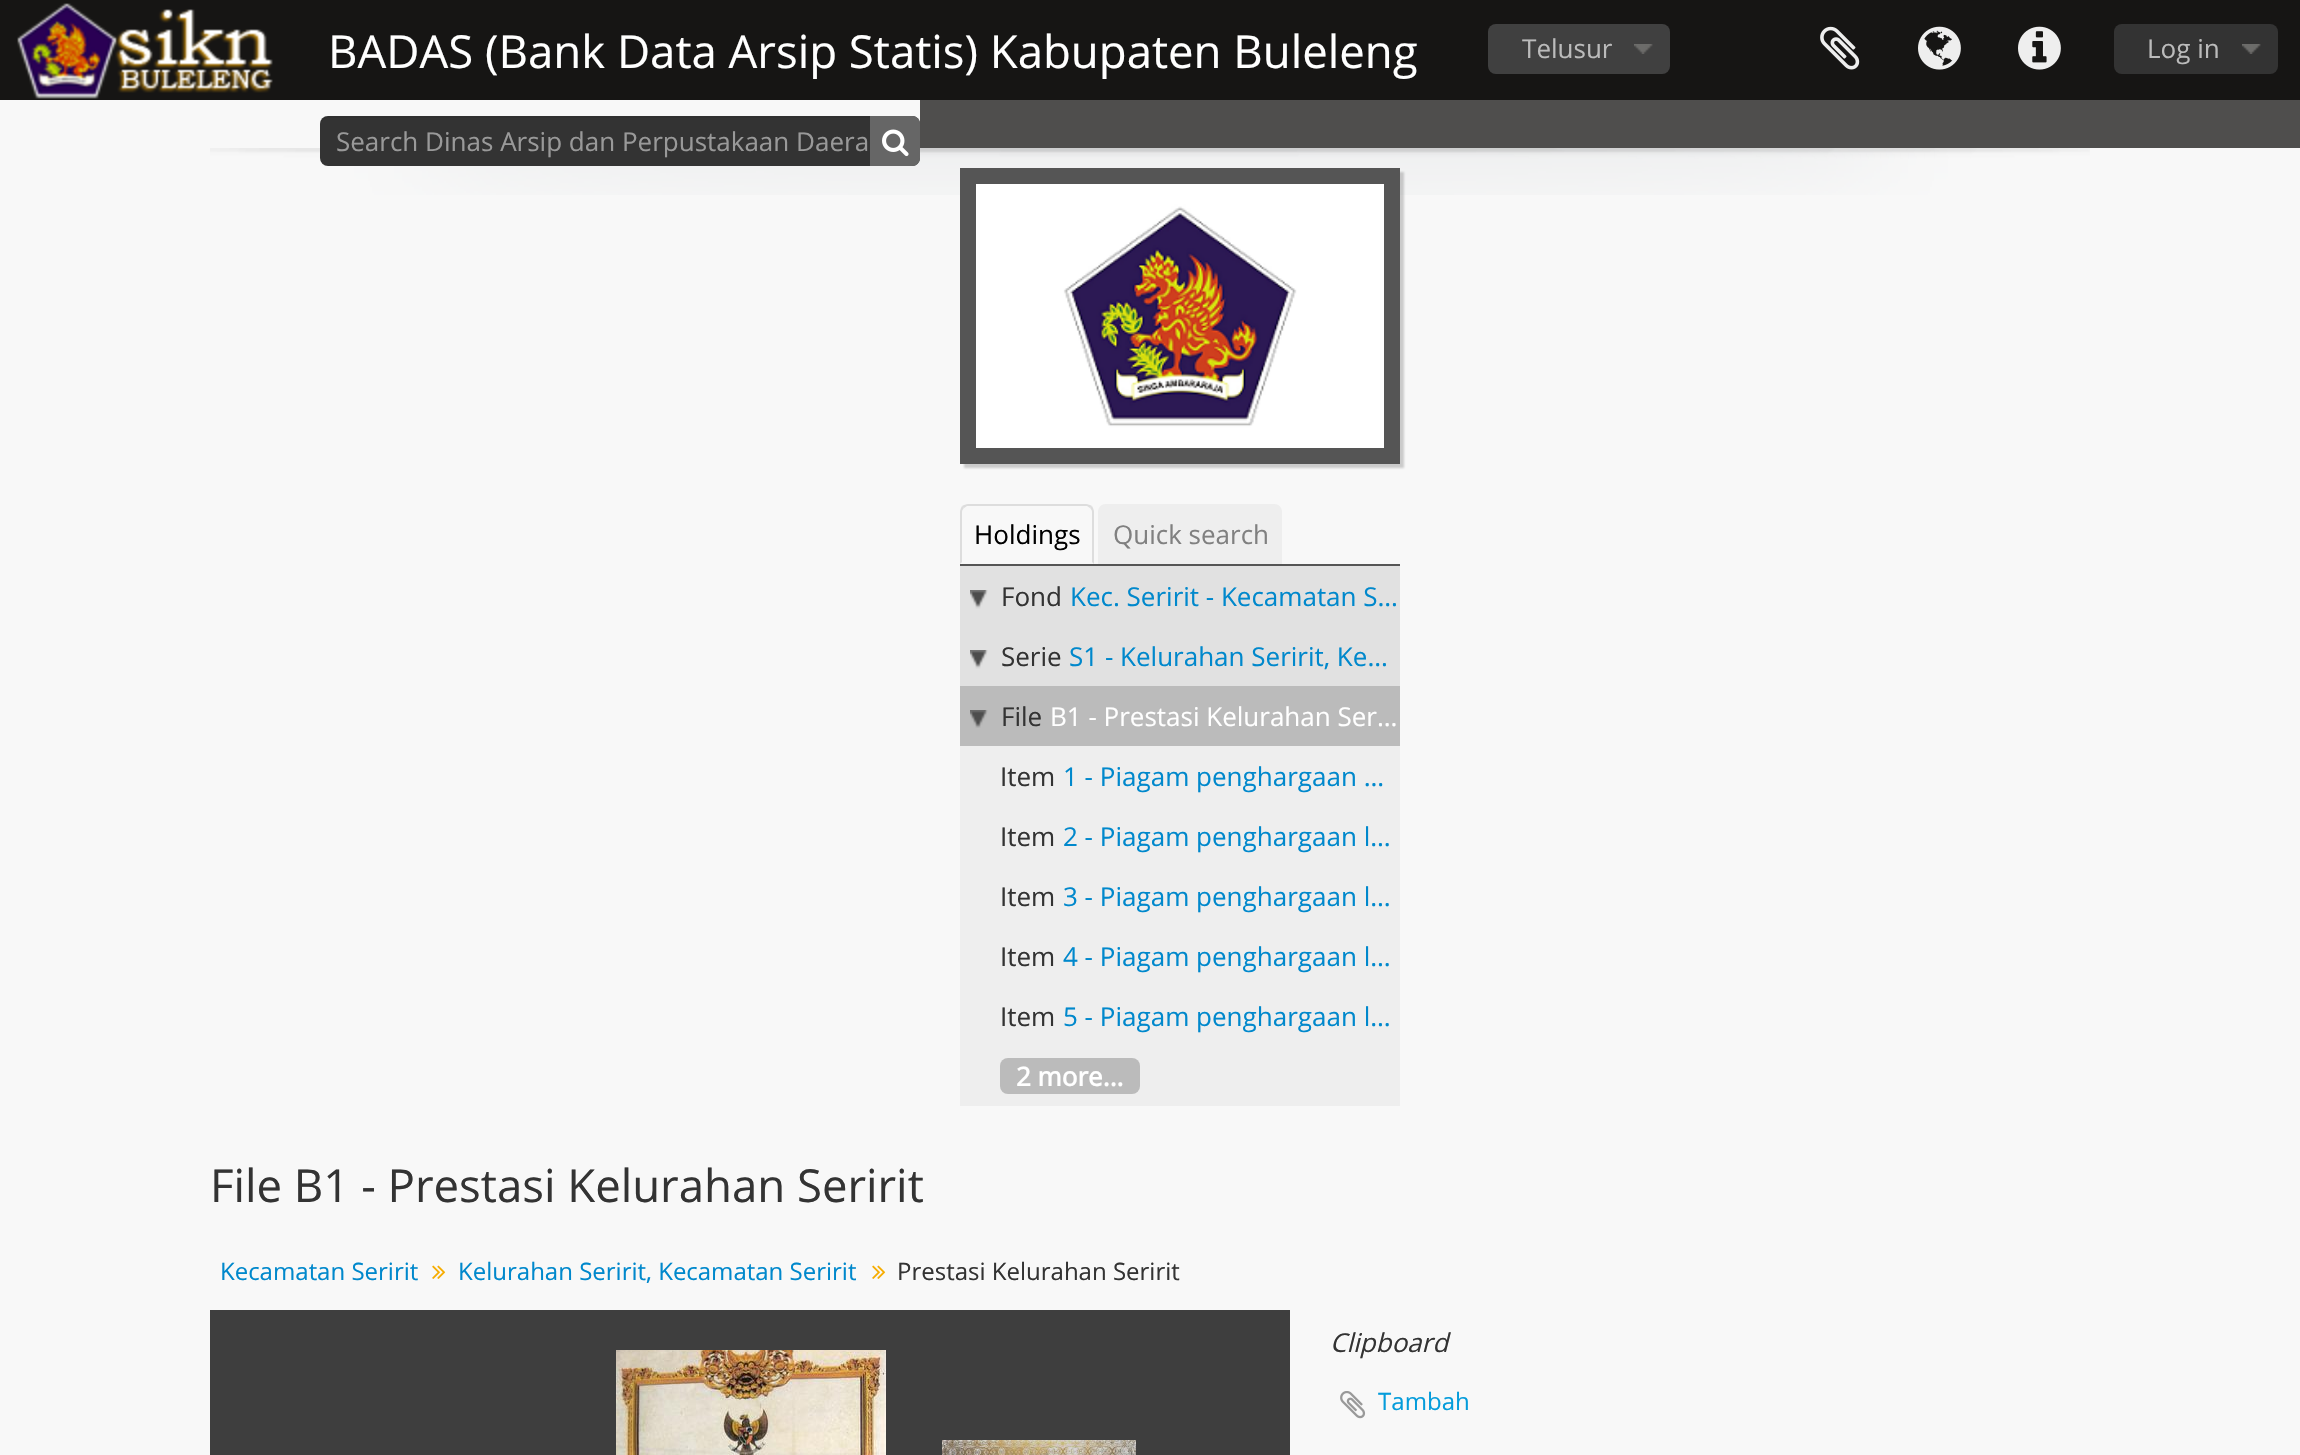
#include "include/core/SkBlurTypes.h"
#include "include/core/SkCanvas.h"
#include "include/core/SkData.h"
#include "include/core/SkFont.h"
#include "include/core/SkFontMgr.h"
#include "include/core/SkImage.h"
#include "include/core/SkMaskFilter.h"
#include "include/core/SkPaint.h"
#include "include/core/SkPathBuilder.h"
#include "include/core/SkTextBlob.h"
#include "include/effects/SkDashPathEffect.h"
#include "include/effects/SkGradientShader.h"
#include "include/utils/SkParsePath.h"

extern sk_sp<SkFontMgr> fontMgr;

void draw(SkCanvas* canvas) {
  SkPaint p;
  p.setAntiAlias(true);
  canvas->clear(SkColorSetRGB(248, 248, 248));
  p.setColor(SkColorSetRGB(22, 21, 20));
  canvas->drawRect(SkRect::MakeLTRB(0, 0, 2300, 100), p);
  canvas->drawImageRect(SkImages::DeferredFromEncodedData(SkData::MakeFromFileName("images/1.png")), SkRect::MakeLTRB(17, 3, 273, 99), SkSamplingOptions());
  p.setColor(SkColorSetRGB(64, 64, 64));
  canvas->drawRoundRect(SkRect::MakeLTRB(1488, 24, 1670, 74), 8, 8, p);
  canvas->drawImageRect(SkImages::DeferredFromEncodedData(SkData::MakeFromFileName("images/2.png")), SkRect::MakeLTRB(1634, 44, 1653, 54), SkSamplingOptions());
  canvas->drawImageRect(SkImages::DeferredFromEncodedData(SkData::MakeFromFileName("images/8.png")), SkRect::MakeLTRB(210, 148, 2090, 195), SkSamplingOptions());
  p.setColor(SkColorSetRGB(51, 51, 51));
  canvas->drawRoundRect(SkRect::MakeLTRB(320, 116, 920, 166), 8, 8, p);
  p.setColor(SkColorSetARGB(18, 0, 0, 0));
  canvas->drawPath(SkPathBuilder().moveTo(328, 118).lineTo(912, 118).cubicTo(916, 118, 920, 122, 920, 126).cubicTo(920, 121, 918, 116, 912, 116).lineTo(328, 116).cubicTo(322, 116, 320, 121, 320, 126).cubicTo(320, 122, 324, 118, 328, 118).close().detach(), p);
  p.setColor(SkColorSetRGB(102, 102, 102));
  canvas->drawPath(SkPathBuilder().moveTo(870, 116).lineTo(912, 116).cubicTo(916.5f, 116, 920, 119.5f, 920, 124).lineTo(920, 158).cubicTo(920, 162.5f, 916.5f, 166, 912, 166).lineTo(870, 166).close().detach(), p);
  canvas->drawImageRect(SkImages::DeferredFromEncodedData(SkData::MakeFromFileName("images/3.png")), SkRect::MakeLTRB(882, 129, 909, 157), SkSamplingOptions());
  canvas->drawImageRect(SkImages::DeferredFromEncodedData(SkData::MakeFromFileName("images/4.png")), SkRect::MakeLTRB(1820, 26, 1860, 70), SkSamplingOptions());
  canvas->drawImageRect(SkImages::DeferredFromEncodedData(SkData::MakeFromFileName("images/5.png")), SkRect::MakeLTRB(1918, 26, 1961, 70), SkSamplingOptions());
  canvas->drawImageRect(SkImages::DeferredFromEncodedData(SkData::MakeFromFileName("images/6.png")), SkRect::MakeLTRB(2018, 26, 2061, 70), SkSamplingOptions());
  p.setColor(SkColorSetRGB(51, 51, 51));
  canvas->drawRoundRect(SkRect::MakeLTRB(2114, 24, 2278, 74), 8, 8, p);
  canvas->drawImageRect(SkImages::DeferredFromEncodedData(SkData::MakeFromFileName("images/7.png")), SkRect::MakeLTRB(2242, 44, 2261, 54), SkSamplingOptions());
  p.setColor(SkColorSetRGB(79, 78, 77));
  canvas->drawRect(SkRect::MakeLTRB(920, 100, 2300, 148), p);
  p.setColor(SkColorSetARGB(51, 25, 25, 25));
  p.setMaskFilter(SkMaskFilter::MakeBlur(kNormal_SkBlurStyle, 1));
  canvas->drawRect(SkRect::MakeLTRB(964, 172, 1404, 468), p);
  p.setMaskFilter(nullptr);
  p.setColor(SkColorSetRGB(85, 85, 85));
  canvas->drawRect(SkRect::MakeLTRB(960, 168, 1400, 464), p);
  canvas->drawImageRect(SkImages::DeferredFromEncodedData(SkData::MakeFromFileName("images/9.png")), SkRect::MakeLTRB(976, 184, 1384, 448), SkSamplingOptions());
  canvas->drawRect(SkRect::MakeLTRB(960, 564, 1400, 566), p);
  p.setColor(SkColorSetRGB(221, 221, 221));
  canvas->drawPath(SkPathBuilder().moveTo(968, 504).cubicTo(966, 504, 964, 505, 962, 506).lineTo(964, 508).lineTo(967, 506).lineTo(1087, 506).lineTo(1090, 508).lineTo(1092, 506).cubicTo(1090, 505, 1088, 504, 1086, 504).close().detach(), p);
  canvas->drawPath(SkPathBuilder().moveTo(1094, 564).lineTo(1094, 512).cubicTo(1094, 510, 1093, 508, 1092, 506).lineTo(1090, 508).cubicTo(1091, 509, 1092, 510, 1092, 512).lineTo(1092, 562).close().detach(), p);
  canvas->drawPath(SkPathBuilder().moveTo(960, 564).lineTo(962, 562).lineTo(962, 512).cubicTo(962, 510, 963, 509, 964, 508).lineTo(962, 506).cubicTo(961, 508, 960, 510, 960, 512).close().detach(), p);
  p.setColor(SkColorSetRGB(238, 238, 238));
  canvas->drawPath(SkPathBuilder().moveTo(1106, 504).lineTo(1274, 504).cubicTo(1278.5f, 504, 1282, 507.5f, 1282, 512).lineTo(1282, 564).lineTo(1098, 564).lineTo(1098, 512).cubicTo(1098, 507.5f, 1101.5f, 504, 1106, 504).close().detach(), p);
  canvas->drawRect(SkRect::MakeLTRB(960, 746, 1400, 1106), p);
  p.setColor(SkColorSetRGB(225, 225, 225));
  canvas->drawRect(SkRect::MakeLTRB(960, 566, 1400, 686), p);
  canvas->drawImageRect(SkImages::DeferredFromEncodedData(SkData::MakeFromFileName("images/10.png")), SkRect::MakeLTRB(970, 590, 988, 609), SkSamplingOptions());
  canvas->drawImageRect(SkImages::DeferredFromEncodedData(SkData::MakeFromFileName("images/10.png")), SkRect::MakeLTRB(970, 650, 988, 669), SkSamplingOptions());
  p.setColor(SkColorSetRGB(187, 187, 187));
  canvas->drawRect(SkRect::MakeLTRB(960, 686, 1400, 746), p);
  canvas->drawImageRect(SkImages::DeferredFromEncodedData(SkData::MakeFromFileName("images/11.png")), SkRect::MakeLTRB(970, 710, 988, 728), SkSamplingOptions());
  canvas->drawRoundRect(SkRect::MakeLTRB(1000, 1058, 1140, 1094), 8, 8, p);
  canvas->drawImageRect(SkImages::DeferredFromEncodedData(SkData::MakeFromFileName("images/12.png")), SkRect::MakeLTRB(432, 1265, 446, 1279), SkSamplingOptions());
  canvas->drawImageRect(SkImages::DeferredFromEncodedData(SkData::MakeFromFileName("images/12.png")), SkRect::MakeLTRB(872, 1265, 886, 1279), SkSamplingOptions());
  p.setColor(SkColorSetRGB(62, 62, 62));
  canvas->drawRect(SkRect::MakeLTRB(210, 1310, 1290, 1455), p);
  canvas->drawImageRect(SkImages::DeferredFromEncodedData(SkData::MakeFromFileName("images/13.png")), SkRect::MakeLTRB(616, 1350, 886, 1455), SkSamplingOptions());
  canvas->drawImageRect(SkImages::DeferredFromEncodedData(SkData::MakeFromFileName("images/14.png")), SkRect::MakeLTRB(942, 1440, 1136, 1455), SkSamplingOptions());
  canvas->drawImageRect(SkImages::DeferredFromEncodedData(SkData::MakeFromFileName("images/15.png")), SkRect::MakeLTRB(1340, 1391, 1366, 1419), SkSamplingOptions());
  SkFont font1(fontMgr->matchFamilyStyle("Open Sans", SkFontStyle::Normal()), 45.5f);
  font1.setSubpixel(true);
  p.setColor(SK_ColorWHITE);
  canvas->drawString("BADAS (Bank Data Arsip Statis) Kabupaten Buleleng", 328, 68, font1, p);
  SkFont font2(fontMgr->matchFamilyStyle("Open Sans", SkFontStyle::Normal()), 26);
  font2.setSubpixel(true);
  p.setColor(SkColorSetRGB(187, 187, 187));
  canvas->drawString("Telusur", 1522, 58, font2, p);
  p.setColor(SkColorSetRGB(153, 153, 153));
  canvas->drawString("Search Dinas Arsip dan Perpustakaan Daera", 336, 151, font2, p);
  p.setColor(SkColorSetRGB(187, 187, 187));
  canvas->drawString("Log in", 2147, 58, font2, p);
  p.setColor(SK_ColorBLACK);
  canvas->drawString("Holdings", 974, 544, font2, p);
  p.setColor(SkColorSetRGB(128, 128, 128));
  canvas->drawString("Quick search", 1113, 544, font2, p);
  p.setColor(SkColorSetRGB(51, 51, 51));
  canvas->drawString("Fond", 1001, 606, font2, p);
  p.setColor(SkColorSetRGB(0, 136, 204));
  canvas->drawString("Kec. Seririt - Kecamatan S…", 1070, 606, font2, p);
  p.setColor(SkColorSetRGB(51, 51, 51));
  canvas->drawString("Serie", 1001, 666, font2, p);
  p.setColor(SkColorSetRGB(0, 136, 204));
  canvas->drawString("S1 - Kelurahan Seririt, Ke…", 1069, 666, font2, p);
  p.setColor(SkColorSetRGB(51, 51, 51));
  canvas->drawString("File", 1001, 726, font2, p);
  p.setColor(SK_ColorWHITE);
  canvas->drawString("B1 - Prestasi Kelurahan Ser…", 1050, 726, font2, p);
  p.setColor(SkColorSetRGB(51, 51, 51));
  canvas->drawString("Item", 1000, 786, font2, p);
  p.setColor(SkColorSetRGB(0, 136, 204));
  canvas->drawString("1 - Piagam penghargaan …", 1063, 786, font2, p);
  p.setColor(SkColorSetRGB(51, 51, 51));
  canvas->drawString("Item", 1000, 846, font2, p);
  p.setColor(SkColorSetRGB(0, 136, 204));
  canvas->drawString("2 - Piagam penghargaan l…", 1063, 846, font2, p);
  p.setColor(SkColorSetRGB(51, 51, 51));
  canvas->drawString("Item", 1000, 906, font2, p);
  p.setColor(SkColorSetRGB(0, 136, 204));
  canvas->drawString("3 - Piagam penghargaan l…", 1063, 906, font2, p);
  p.setColor(SkColorSetRGB(51, 51, 51));
  canvas->drawString("Item", 1000, 966, font2, p);
  p.setColor(SkColorSetRGB(0, 136, 204));
  canvas->drawString("4 - Piagam penghargaan l…", 1063, 966, font2, p);
  p.setColor(SkColorSetRGB(51, 51, 51));
  canvas->drawString("Item", 1000, 1026, font2, p);
  p.setColor(SkColorSetRGB(0, 136, 204));
  canvas->drawString("5 - Piagam penghargaan l…", 1063, 1026, font2, p);
  SkFont font3(fontMgr->matchFamilyStyle("Open Sans", SkFontStyle::Bold()), 26);
  font3.setSubpixel(true);
  p.setColor(SK_ColorWHITE);
  canvas->drawString("2 more...", 1016, 1086, font3, p);
  p.setColor(SkColorSetRGB(51, 51, 51));
  canvas->drawString("File B1 - Prestasi Kelurahan Seririt", 210, 1202, font1, p);
  SkFont font4(fontMgr->matchFamilyStyle("Open Sans", SkFontStyle::Normal()), 24);
  font4.setSubpixel(true);
  p.setColor(SkColorSetRGB(0, 136, 204));
  canvas->drawString("Kecamatan Seririt", 220, 1280, font4, p);
  canvas->drawString("Kelurahan Seririt, Kecamatan Seririt", 458, 1280, font4, p);
  p.setColor(SkColorSetRGB(51, 51, 51));
  canvas->drawString("Prestasi Kelurahan Seririt", 897, 1280, font4, p);
  SkFont font5(fontMgr->matchFamilyStyle("Open Sans", SkFontStyle::Italic()), 26);
  font5.setSubpixel(true);
  canvas->drawString("Clipboard", 1330, 1352, font5, p);
  p.setColor(SkColorSetRGB(4, 156, 219));
  canvas->drawString("Tambah", 1378, 1410, font4, p);
}
